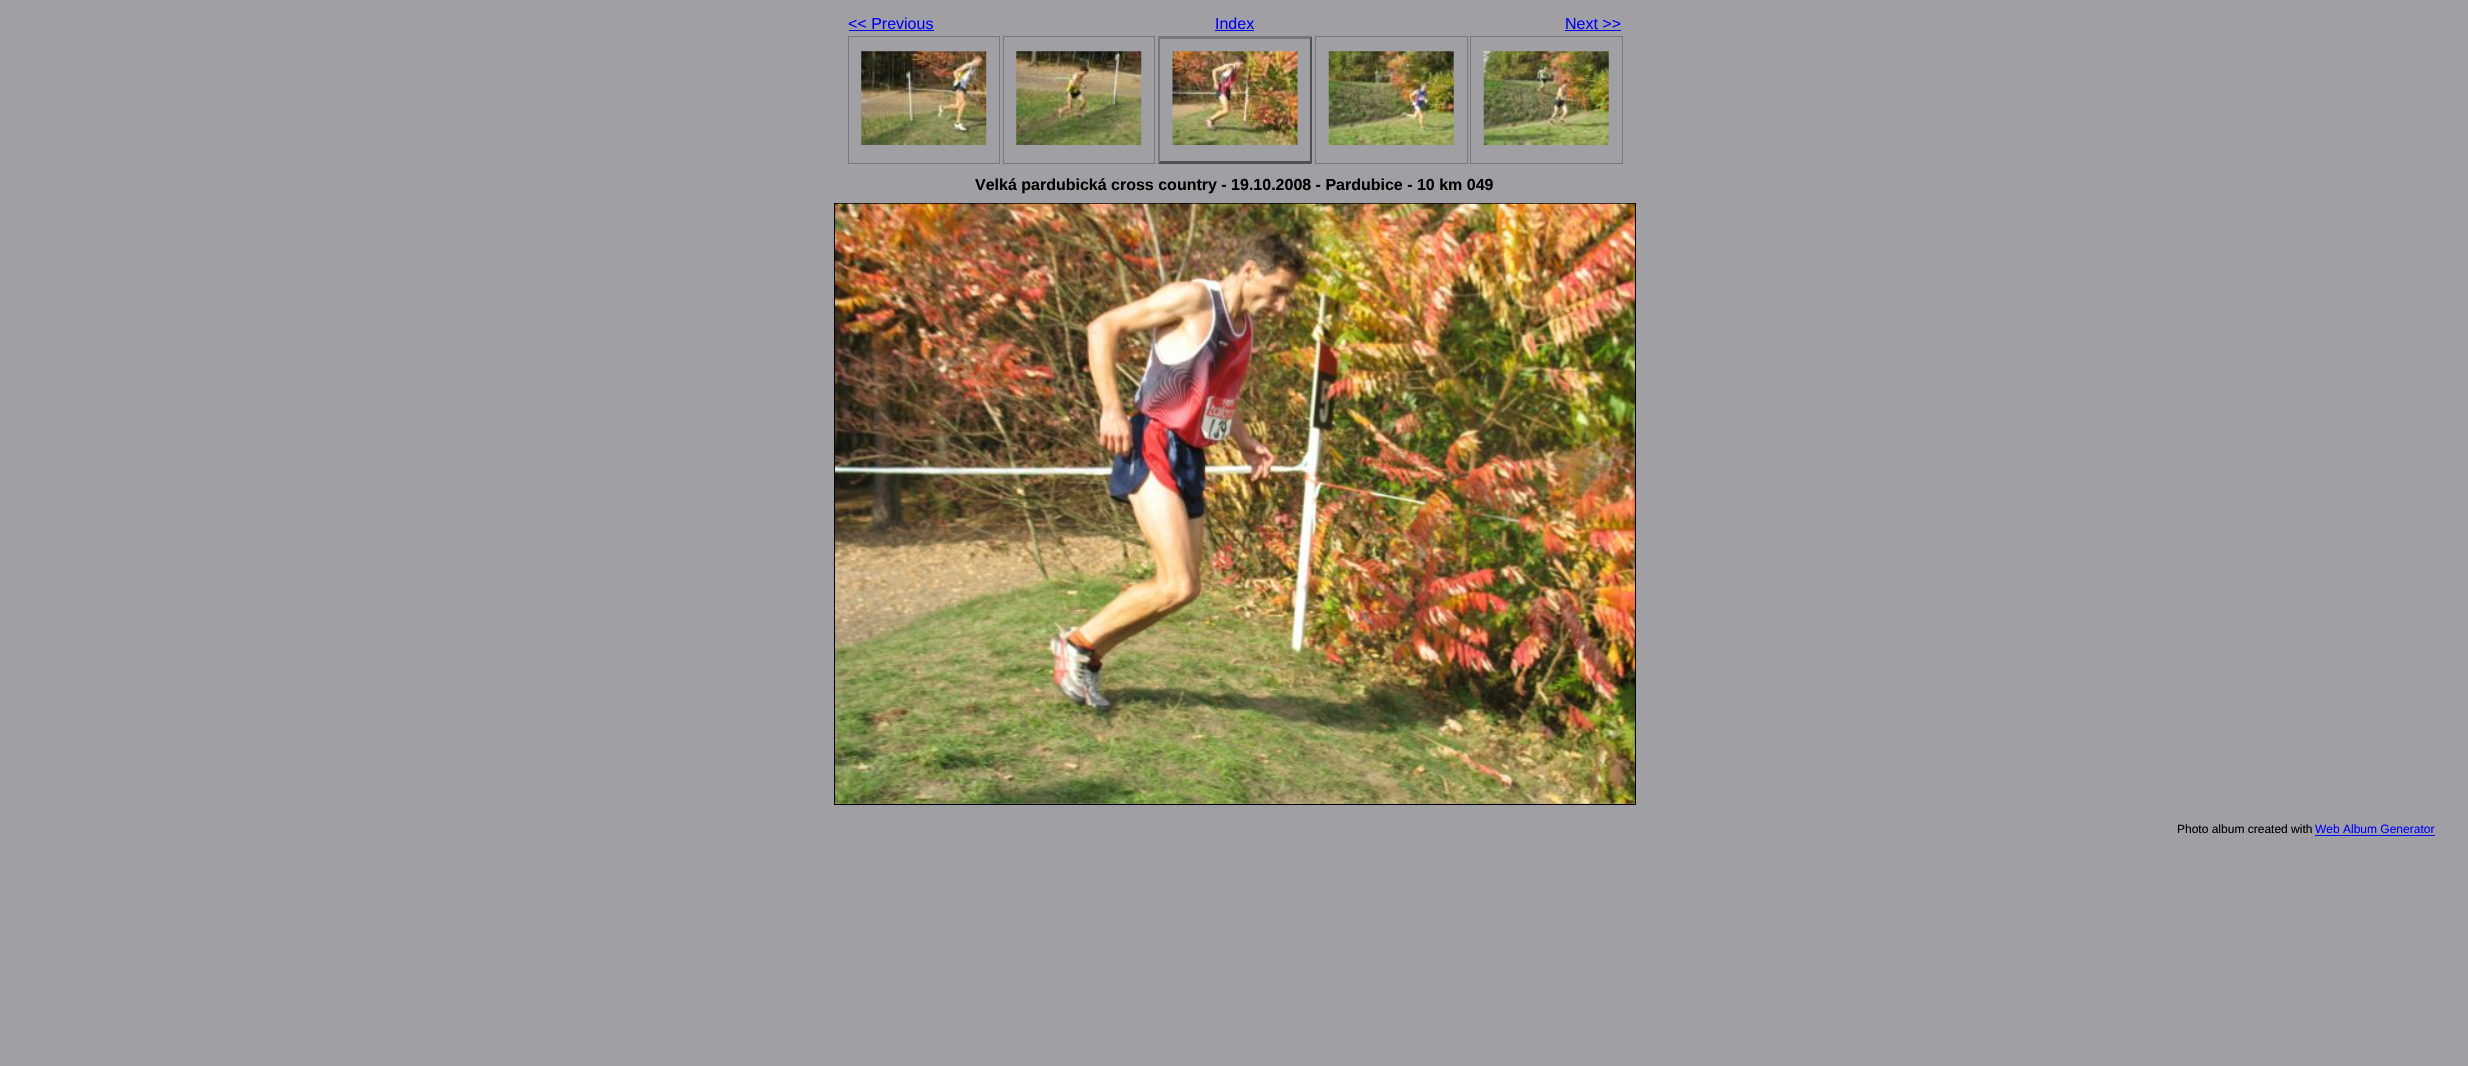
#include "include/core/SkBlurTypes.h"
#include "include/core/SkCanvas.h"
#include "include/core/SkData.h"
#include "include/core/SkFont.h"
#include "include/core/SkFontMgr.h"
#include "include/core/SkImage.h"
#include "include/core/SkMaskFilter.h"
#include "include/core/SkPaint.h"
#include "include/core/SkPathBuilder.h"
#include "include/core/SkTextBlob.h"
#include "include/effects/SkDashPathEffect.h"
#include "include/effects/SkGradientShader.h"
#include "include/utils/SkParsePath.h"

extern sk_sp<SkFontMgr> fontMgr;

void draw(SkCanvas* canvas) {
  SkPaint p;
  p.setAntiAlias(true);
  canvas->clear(SkColorSetRGB(160, 160, 164));
  p.setColor(SkColorSetRGB(0, 0, 255));
  canvas->drawRect(SkRect::MakeLTRB(849, 30, 934, 31), p);
  canvas->drawRect(SkRect::MakeLTRB(1215, 30, 1254, 31), p);
  canvas->drawRect(SkRect::MakeLTRB(1565, 30, 1621, 31), p);
  p.setStyle(SkPaint::kStroke_Style);
  p.setStrokeWidth(1);
  p.setColor(SkColorSetRGB(120, 120, 124));
  canvas->drawRect(SkRect::MakeLTRB(848.5f, 36.5f, 999.5f, 163.5f), p);
  canvas->drawImageRect(SkImages::DeferredFromEncodedData(SkData::MakeFromFileName("images/1.png")), SkRect::MakeLTRB(861, 51, 987, 145), SkSamplingOptions());
  canvas->drawRect(SkRect::MakeLTRB(1003.5f, 36.5f, 1154.5f, 163.5f), p);
  canvas->drawImageRect(SkImages::DeferredFromEncodedData(SkData::MakeFromFileName("images/2.png")), SkRect::MakeLTRB(1016, 51, 1142, 145), SkSamplingOptions());
  p.setStyle(SkPaint::kFill_Style);
  canvas->drawPath(SkPathBuilder().moveTo(1158, 36).lineTo(1312, 36).lineTo(1310, 39).lineTo(1160, 39).close().detach(), p);
  p.setColor(SkColorSetRGB(80, 80, 83));
  canvas->drawPath(SkPathBuilder().moveTo(1312, 36).lineTo(1312, 164).lineTo(1310, 161).lineTo(1310, 39).close().detach(), p);
  canvas->drawPath(SkPathBuilder().moveTo(1312, 164).lineTo(1158, 164).lineTo(1160, 161).lineTo(1310, 161).close().detach(), p);
  p.setColor(SkColorSetRGB(120, 120, 124));
  canvas->drawPath(SkPathBuilder().moveTo(1158, 164).lineTo(1158, 36).lineTo(1160, 39).lineTo(1160, 161).close().detach(), p);
  canvas->drawImageRect(SkImages::DeferredFromEncodedData(SkData::MakeFromFileName("images/3.png")), SkRect::MakeLTRB(1172, 51, 1298, 145), SkSamplingOptions());
  p.setStyle(SkPaint::kStroke_Style);
  canvas->drawRect(SkRect::MakeLTRB(1315.5f, 36.5f, 1467.5f, 163.5f), p);
  canvas->drawImageRect(SkImages::DeferredFromEncodedData(SkData::MakeFromFileName("images/4.png")), SkRect::MakeLTRB(1328, 51, 1454, 145), SkSamplingOptions());
  canvas->drawRect(SkRect::MakeLTRB(1470.5f, 36.5f, 1622.5f, 163.5f), p);
  canvas->drawImageRect(SkImages::DeferredFromEncodedData(SkData::MakeFromFileName("images/5.png")), SkRect::MakeLTRB(1483, 51, 1609, 145), SkSamplingOptions());
  p.setColor(SK_ColorBLACK);
  canvas->drawRect(SkRect::MakeLTRB(834.5f, 203.5f, 1635.5f, 804.5f), p);
  canvas->drawImageRect(SkImages::DeferredFromEncodedData(SkData::MakeFromFileName("images/6.png")), SkRect::MakeLTRB(835, 203, 1635, 804), SkSamplingOptions());
  p.setStyle(SkPaint::kFill_Style);
  p.setColor(SkColorSetRGB(0, 0, 255));
  canvas->drawRect(SkRect::MakeLTRB(2315, 835, 2435, 836), p);
  SkFont font1(fontMgr->matchFamilyStyle("Liberation Sans", SkFontStyle::Normal()), 16);
  font1.setSubpixel(true);
  canvas->drawString("<< Previous", 848, 29, font1, p);
  canvas->drawString("Index", 1215, 29, font1, p);
  canvas->drawString("Next >>", 1565, 29, font1, p);
  SkFont font2(fontMgr->matchFamilyStyle("Liberation Sans", SkFontStyle::Bold()), 16);
  font2.setSubpixel(true);
  p.setColor(SK_ColorBLACK);
  canvas->drawString("Velká pardubická cross country - 19.10.2008 - Pardubice - 10 km 049", 975, 190, font2, p);
  SkFont font3(fontMgr->matchFamilyStyle("Liberation Sans", SkFontStyle::Normal()), 12);
  font3.setSubpixel(true);
  canvas->drawString("Photo album created with", 2177, 833, font3, p);
  p.setColor(SkColorSetRGB(0, 0, 255));
  canvas->drawString("Web Album Generator", 2315, 833, font3, p);
}
